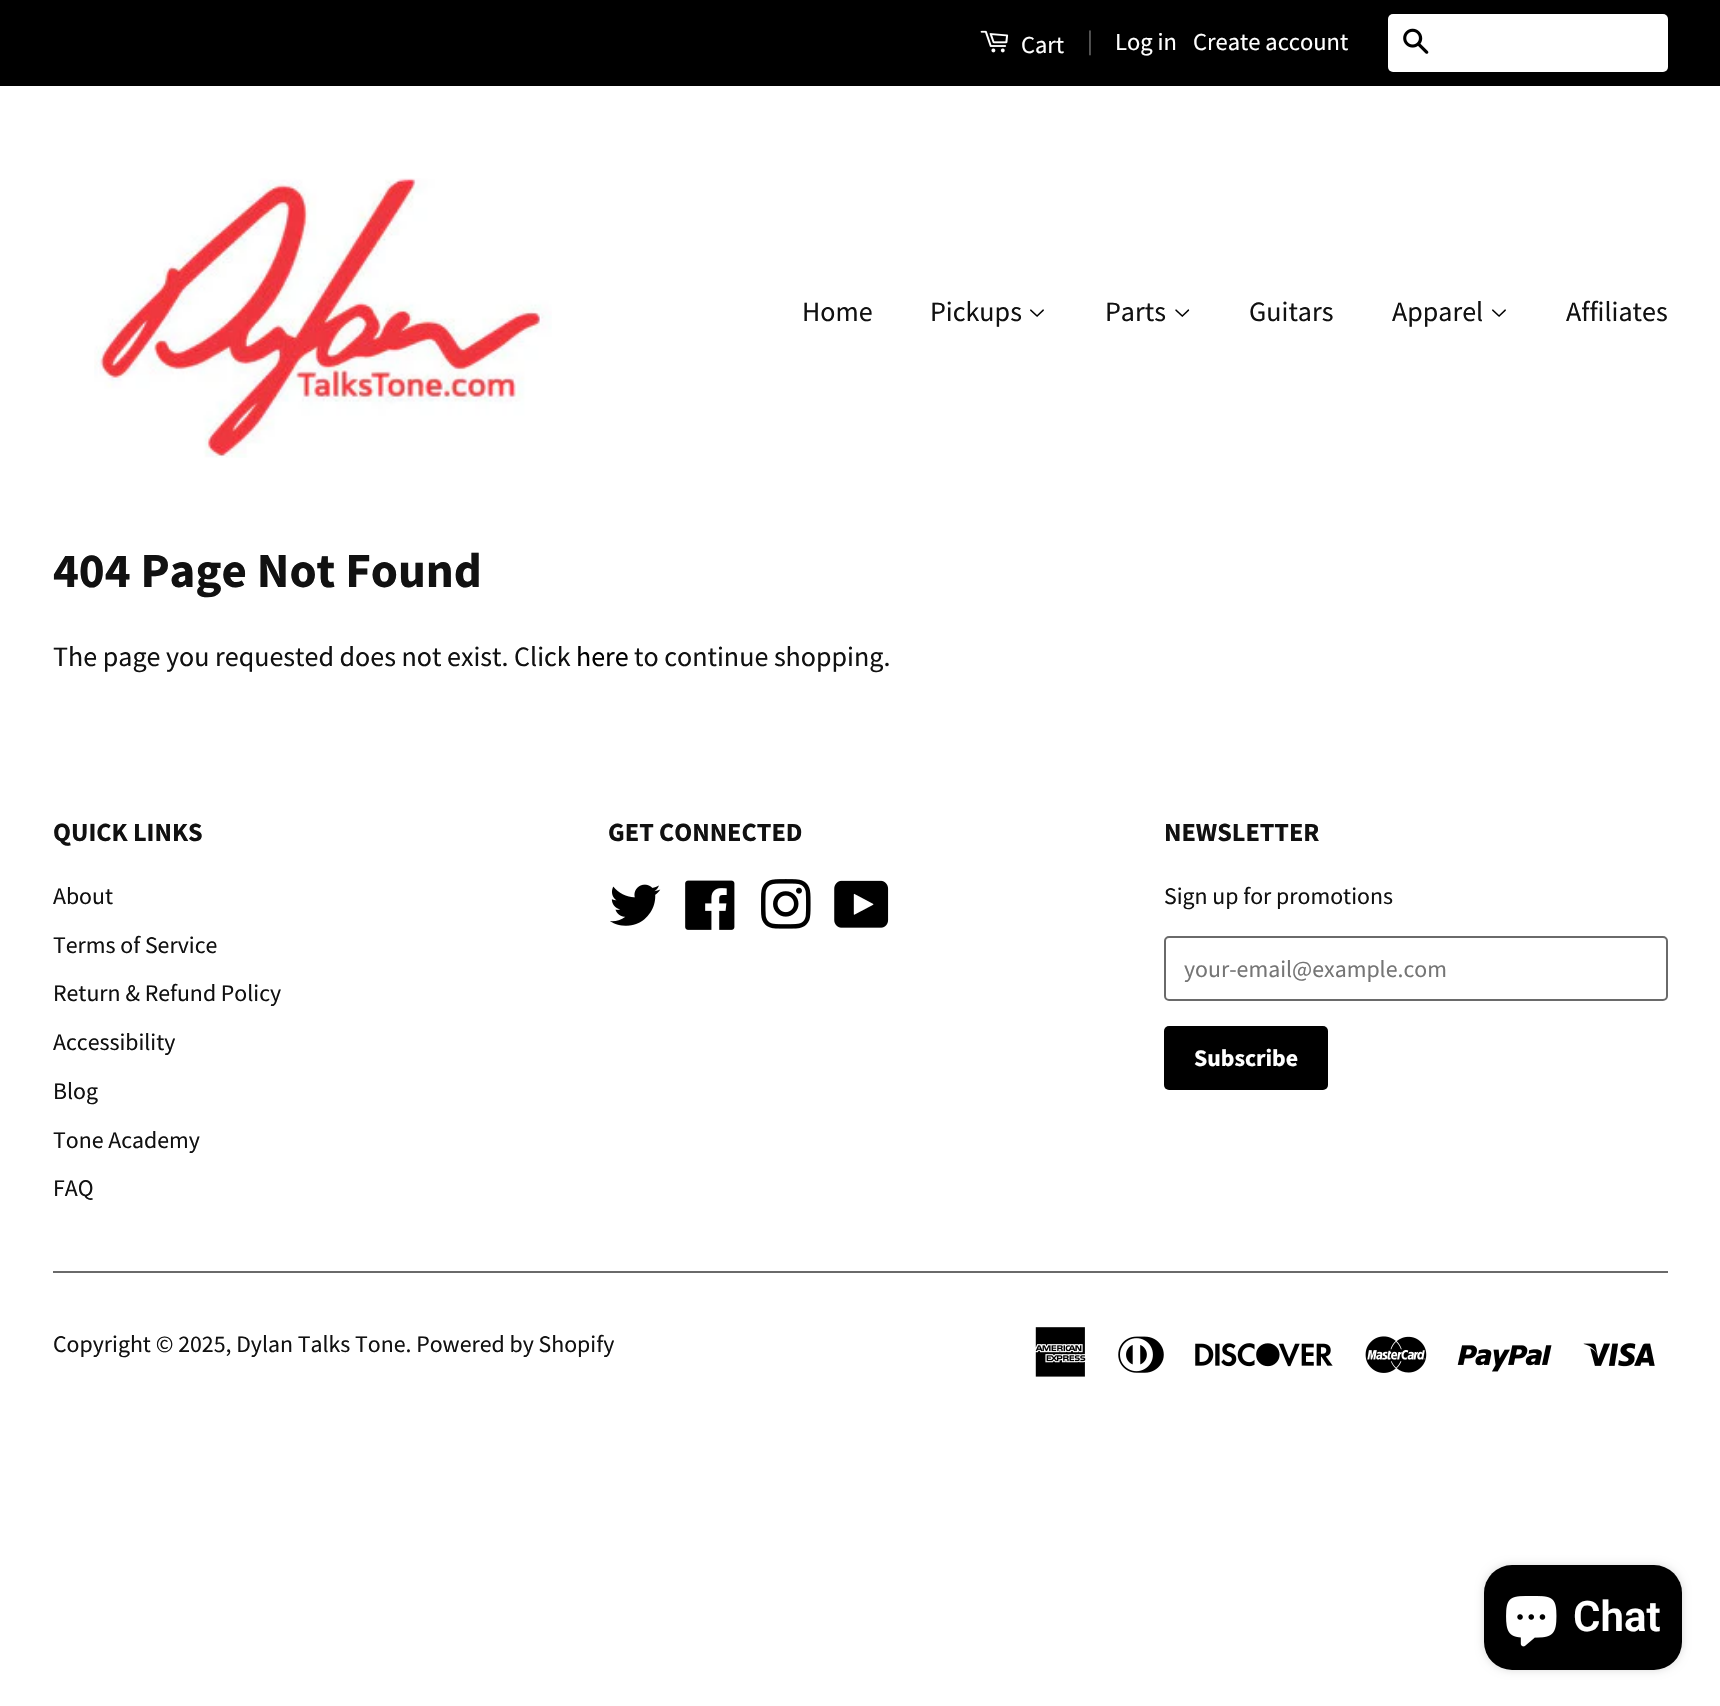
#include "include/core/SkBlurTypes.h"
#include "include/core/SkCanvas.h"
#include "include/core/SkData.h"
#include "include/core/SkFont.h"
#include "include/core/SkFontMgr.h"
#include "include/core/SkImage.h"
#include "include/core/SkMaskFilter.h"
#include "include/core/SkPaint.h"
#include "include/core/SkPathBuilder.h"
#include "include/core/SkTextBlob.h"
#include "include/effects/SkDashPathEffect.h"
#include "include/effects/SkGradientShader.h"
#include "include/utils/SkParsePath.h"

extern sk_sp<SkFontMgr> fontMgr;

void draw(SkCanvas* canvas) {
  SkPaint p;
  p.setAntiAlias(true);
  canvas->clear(SK_ColorWHITE);
  p.setColor(SK_ColorBLACK);
  canvas->drawRect(SkRect::MakeLTRB(0, 0, 1720, 86), p);
  canvas->drawImageRect(SkImages::DeferredFromEncodedData(SkData::MakeFromFileName("images/1.png")), SkRect::MakeLTRB(980, 30, 1009, 53), SkSamplingOptions());
  p.setColor(SK_ColorWHITE);
  canvas->drawRoundRect(SkRect::MakeLTRB(1388, 14, 1668, 72), 5, 5, p);
  canvas->drawImageRect(SkImages::DeferredFromEncodedData(SkData::MakeFromFileName("images/2.png")), SkRect::MakeLTRB(1403, 28, 1429, 54), SkSamplingOptions());
  canvas->drawImageRect(SkImages::DeferredFromEncodedData(SkData::MakeFromFileName("images/3.png")), SkRect::MakeLTRB(94, 178, 552, 458), SkSamplingOptions());
  canvas->drawImageRect(SkImages::DeferredFromEncodedData(SkData::MakeFromFileName("images/4.png")), SkRect::MakeLTRB(1030, 309, 1044, 317), SkSamplingOptions());
  canvas->drawImageRect(SkImages::DeferredFromEncodedData(SkData::MakeFromFileName("images/5.png")), SkRect::MakeLTRB(1175, 309, 1190, 317), SkSamplingOptions());
  canvas->drawImageRect(SkImages::DeferredFromEncodedData(SkData::MakeFromFileName("images/4.png")), SkRect::MakeLTRB(1492, 309, 1506, 317), SkSamplingOptions());
  canvas->drawImageRect(SkImages::DeferredFromEncodedData(SkData::MakeFromFileName("images/6.png")), SkRect::MakeLTRB(610, 884, 661, 926), SkSamplingOptions());
  canvas->drawImageRect(SkImages::DeferredFromEncodedData(SkData::MakeFromFileName("images/7.png")), SkRect::MakeLTRB(685, 880, 735, 930), SkSamplingOptions());
  canvas->drawImageRect(SkImages::DeferredFromEncodedData(SkData::MakeFromFileName("images/8.png")), SkRect::MakeLTRB(761, 879, 811, 929), SkSamplingOptions());
  canvas->drawImageRect(SkImages::DeferredFromEncodedData(SkData::MakeFromFileName("images/9.png")), SkRect::MakeLTRB(834, 880, 889, 928), SkSamplingOptions());
  p.setStyle(SkPaint::kStroke_Style);
  p.setStrokeWidth(2);
  p.setColor(SkColorSetRGB(106, 106, 106));
  canvas->drawRoundRect(SkRect::MakeLTRB(1165, 937, 1667, 1000), 4, 4, p);
  p.setStyle(SkPaint::kFill_Style);
  p.setColor(SK_ColorBLACK);
  canvas->drawRoundRect(SkRect::MakeLTRB(1164, 1026, 1328, 1090), 5, 5, p);
  p.setColor(SkColorSetRGB(106, 106, 106));
  canvas->drawRect(SkRect::MakeLTRB(53, 1271, 1668, 1273), p);
  canvas->drawImageRect(SkImages::DeferredFromEncodedData(SkData::MakeFromFileName("images/10.png")), SkRect::MakeLTRB(1035, 1327, 1086, 1377), SkSamplingOptions());
  canvas->drawImageRect(SkImages::DeferredFromEncodedData(SkData::MakeFromFileName("images/11.png")), SkRect::MakeLTRB(1118, 1336, 1164, 1373), SkSamplingOptions());
  canvas->drawImageRect(SkImages::DeferredFromEncodedData(SkData::MakeFromFileName("images/12.png")), SkRect::MakeLTRB(1195, 1343, 1333, 1367), SkSamplingOptions());
  canvas->drawImageRect(SkImages::DeferredFromEncodedData(SkData::MakeFromFileName("images/13.png")), SkRect::MakeLTRB(1365, 1336, 1427, 1373), SkSamplingOptions());
  canvas->drawImageRect(SkImages::DeferredFromEncodedData(SkData::MakeFromFileName("images/14.png")), SkRect::MakeLTRB(1457, 1345, 1552, 1372), SkSamplingOptions());
  canvas->drawImageRect(SkImages::DeferredFromEncodedData(SkData::MakeFromFileName("images/15.png")), SkRect::MakeLTRB(1583, 1343, 1655, 1367), SkSamplingOptions());
  p.setColor(SkColorSetARGB(38, 0, 0, 0));
  p.setMaskFilter(SkMaskFilter::MakeBlur(kNormal_SkBlurStyle, 4.5f));
  canvas->drawRoundRect(SkRect::MakeLTRB(1484, 1565, 1682, 1670), 28, 28, p);
  p.setMaskFilter(nullptr);
  p.setColor(SK_ColorBLACK);
  canvas->drawRoundRect(SkRect::MakeLTRB(1484, 1565, 1682, 1670), 28, 28, p);
  canvas->drawImageRect(SkImages::DeferredFromEncodedData(SkData::MakeFromFileName("images/16.png")), SkRect::MakeLTRB(1506, 1596, 1557, 1647), SkSamplingOptions());
  SkFont font1(fontMgr->matchFamilyStyle("Source Sans Pro", SkFontStyle::Normal()), 24.5f);
  font1.setSubpixel(true);
  p.setColor(SK_ColorWHITE);
  canvas->drawString("Cart", 1021, 53, font1, p);
  p.setColor(SkColorSetRGB(102, 102, 102));
  canvas->drawString("|", 1087, 49, font1, p);
  p.setColor(SK_ColorWHITE);
  canvas->drawString("Log in", 1115, 50, font1, p);
  canvas->drawString("Create account", 1193, 50, font1, p);
  SkFont font2(fontMgr->matchFamilyStyle("Source Sans Pro", SkFontStyle::Normal()), 28);
  font2.setSubpixel(true);
  p.setColor(SkColorSetRGB(17, 17, 17));
  canvas->drawString("Home", 802, 321, font2, p);
  canvas->drawString("Pickups", 930, 321, font2, p);
  canvas->drawString("Parts", 1105, 321, font2, p);
  canvas->drawString("Guitars", 1249, 321, font2, p);
  canvas->drawString("Apparel", 1392, 321, font2, p);
  canvas->drawString("Affiliates", 1566, 321, font2, p);
  SkFont font3(fontMgr->matchFamilyStyle("Source Sans Pro", SkFontStyle::Bold()), 49);
  font3.setSubpixel(true);
  canvas->drawString("404 Page Not Found", 53, 587, font3, p);
  canvas->drawString("The page you requested does not exist. Click", 53, 666, font2, p);
  p.setColor(SK_ColorBLACK);
  canvas->drawString("here", 576, 666, font2, p);
  p.setColor(SkColorSetRGB(17, 17, 17));
  canvas->drawString("to continue shopping.", 634, 666, font2, p);
  SkFont font4(fontMgr->matchFamilyStyle("Source Sans Pro", SkFontStyle::Bold()), 26.25f);
  font4.setSubpixel(true);
  canvas->drawString("QUICK LINKS", 53, 841, font4, p);
  SkFont font5(fontMgr->matchFamilyStyle("Source Sans Pro", SkFontStyle::Normal()), 23.8f);
  font5.setSubpixel(true);
  canvas->drawString("About", 53, 904, font5, p);
  canvas->drawString("Terms of Service", 53, 953, font5, p);
  canvas->drawString("Return & Refund Policy", 53, 1001, font5, p);
  canvas->drawString("Accessibility", 53, 1050, font5, p);
  canvas->drawString("Blog", 53, 1099, font5, p);
  canvas->drawString("Tone Academy", 53, 1148, font5, p);
  canvas->drawString("FAQ", 53, 1196, font5, p);
  canvas->drawString("GET CONNECTED", 608, 841, font4, p);
  canvas->drawString("NEWSLETTER", 1164, 841, font4, p);
  canvas->drawString("Sign up for promotions", 1164, 904, font5, p);
  p.setColor(SkColorSetRGB(117, 117, 117));
  canvas->drawString("your-email@example.com", 1184, 977, font5, p);
  SkFont font6(fontMgr->matchFamilyStyle("Source Sans Pro", SkFontStyle::Bold()), 23.8f);
  font6.setSubpixel(true);
  p.setColor(SK_ColorWHITE);
  canvas->drawString("Subscribe", 1194, 1066, font6, p);
  p.setColor(SkColorSetRGB(17, 17, 17));
  canvas->drawString("Copyright © 2025, Dylan Talks Tone. Powered by Shopify", 53, 1352, font5, p);
  SkFont font7(fontMgr->matchFamilyStyle("Roboto", SkFontStyle(600, SkFontStyle::kNormal_Width, SkFontStyle::kUpright_Slant)), 42);
  font7.setSubpixel(true);
  p.setColor(SK_ColorWHITE);
  canvas->drawString("Chat", 1573, 1631, font7, p);
}
